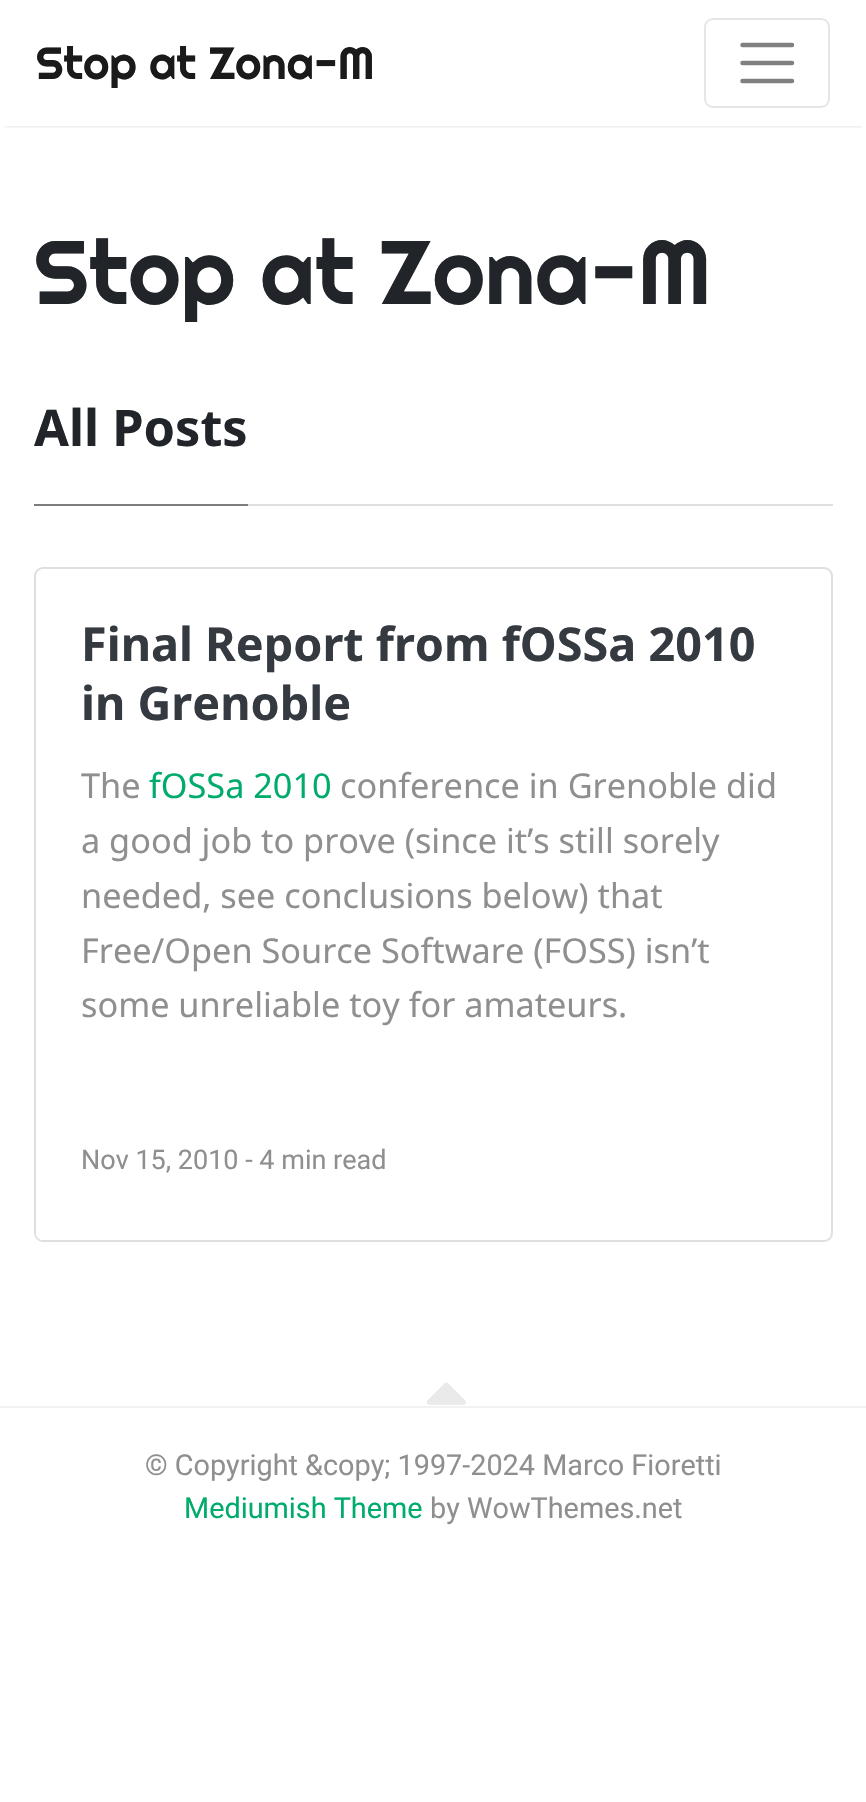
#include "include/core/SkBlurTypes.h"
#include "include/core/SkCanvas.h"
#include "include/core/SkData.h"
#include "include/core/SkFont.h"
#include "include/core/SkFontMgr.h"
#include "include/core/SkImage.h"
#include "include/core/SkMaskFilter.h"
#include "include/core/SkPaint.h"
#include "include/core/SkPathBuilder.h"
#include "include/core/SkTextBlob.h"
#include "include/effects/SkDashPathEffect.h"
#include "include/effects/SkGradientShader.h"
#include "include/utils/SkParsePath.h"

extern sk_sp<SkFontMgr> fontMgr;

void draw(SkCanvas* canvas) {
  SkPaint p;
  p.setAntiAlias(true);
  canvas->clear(SK_ColorWHITE);
  canvas->save();
  canvas->clipRect(SkRect::MakeLTRB(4, 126, 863, 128));
  p.setColor(SkColorSetARGB(38, 0, 0, 0));
  p.setMaskFilter(SkMaskFilter::MakeBlur(kNormal_SkBlurStyle, 2));
  canvas->drawRect(SkRect::MakeLTRB(5, 9, 862, 126), p);
  p.setMaskFilter(nullptr);
  canvas->restore();
  p.setStyle(SkPaint::kStroke_Style);
  p.setStrokeWidth(2);
  p.setColor(SkColorSetRGB(230, 230, 230));
  canvas->drawRoundRect(SkRect::MakeLTRB(705, 19, 829, 107), 8, 8, p);
  p.setStrokeWidth(4.5f);
  p.setStrokeCap(SkPaint::kRound_Cap);
  p.setColor(SkColorSetRGB(128, 128, 128));
  canvas->drawPath(SkPathBuilder().moveTo(742.5f, 45).lineTo(792, 45).moveTo(742.5f, 63).lineTo(792, 63).moveTo(742.5f, 81).lineTo(792, 81).detach(), p);
  p.setStyle(SkPaint::kFill_Style);
  p.setColor(SkColorSetRGB(223, 223, 223));
  canvas->drawRect(SkRect::MakeLTRB(248, 504, 833, 506), p);
  p.setColor(SkColorSetRGB(125, 125, 125));
  canvas->drawRect(SkRect::MakeLTRB(34, 504, 248, 506), p);
  p.setStyle(SkPaint::kStroke_Style);
  p.setStrokeWidth(2);
  p.setStrokeCap(SkPaint::kButt_Cap);
  p.setColor(SkColorSetRGB(223, 223, 223));
  canvas->drawRoundRect(SkRect::MakeLTRB(35, 568, 832, 1241), 8, 8, p);
  p.setStyle(SkPaint::kFill_Style);
  p.setColor(SK_ColorWHITE);
  canvas->drawPath(SkPathBuilder().moveTo(36, 1112).lineTo(830, 1112).lineTo(830, 1233).cubicTo(830, 1237, 827, 1240, 823, 1240).lineTo(43, 1240).cubicTo(39, 1240, 36, 1237, 36, 1233).close().detach(), p);
  canvas->drawImageRect(SkImages::DeferredFromEncodedData(SkData::MakeFromFileName("images/1.png")), SkRect::MakeLTRB(426, 1382, 466, 1405), SkSamplingOptions());
  p.setColor(SkColorSetRGB(242, 242, 242));
  canvas->drawRect(SkRect::MakeLTRB(0, 1406, 866, 1408), p);
  SkFont font1(fontMgr->matchFamilyStyle("Righteous", SkFontStyle::Normal()), 45);
  font1.setSubpixel(true);
  p.setColor(SkColorSetRGB(26, 26, 26));
  canvas->drawString("Stop at Zona-M", 36, 79, font1, p);
  SkFont font2(fontMgr->matchFamilyStyle("Righteous", SkFontStyle::Normal()), 90);
  font2.setSubpixel(true);
  p.setColor(SkColorSetRGB(33, 37, 41));
  canvas->drawString("Stop at Zona-M", 34, 304, font2, p);
  SkFont font3(fontMgr->matchFamilyStyle("Noto Sans", SkFontStyle::Bold()), 50.5f);
  font3.setSubpixel(true);
  canvas->drawString("All Posts", 34, 446, font3, p);
  SkFont font4(fontMgr->matchFamilyStyle("Noto Sans", SkFontStyle::Bold()), 46.75f);
  font4.setSubpixel(true);
  p.setColor(SkColorSetRGB(52, 58, 64));
  canvas->drawString("Final Report from fOSSa 2010", 81, 661, font4, p);
  canvas->drawString("in Grenoble", 81, 720, font4, p);
  SkFont font5(fontMgr->matchFamilyStyle("Noto Sans", SkFontStyle::Normal()), 34.25f);
  font5.setSubpixel(true);
  p.setColor(SkColorSetRGB(143, 143, 143));
  canvas->drawString("The", 81, 798, font5, p);
  p.setColor(SkColorSetRGB(0, 171, 107));
  canvas->drawString("fOSSa 2010", 149, 798, font5, p);
  p.setColor(SkColorSetRGB(143, 143, 143));
  canvas->drawString("conference in Grenoble did", 340, 798, font5, p);
  canvas->drawString("a good job to prove (since it’s still sorely", 81, 853, font5, p);
  canvas->drawString("needed, see conclusions below) that", 81, 908, font5, p);
  canvas->drawString("Free/Open Source Software (FOSS) isn’t", 81, 963, font5, p);
  canvas->drawString("some unreliable toy for amateurs.", 81, 1017, font5, p);
  SkFont font6(fontMgr->matchFamilyStyle("Roboto", SkFontStyle::Normal()), 27);
  font6.setSubpixel(true);
  canvas->drawString("Nov 15, 2010 - 4 min read", 81, 1169, font6, p);
  SkFont font7(fontMgr->matchFamilyStyle("Roboto", SkFontStyle::Normal()), 28.8f);
  font7.setSubpixel(true);
  canvas->drawString("© Copyright &copy; 1997-2024 Marco Fioretti", 145, 1475, font7, p);
  p.setColor(SkColorSetRGB(0, 171, 107));
  canvas->drawString("Mediumish Theme", 184, 1518, font7, p);
  p.setColor(SkColorSetRGB(143, 143, 143));
  canvas->drawString("by WowThemes.net", 430, 1518, font7, p);
}
